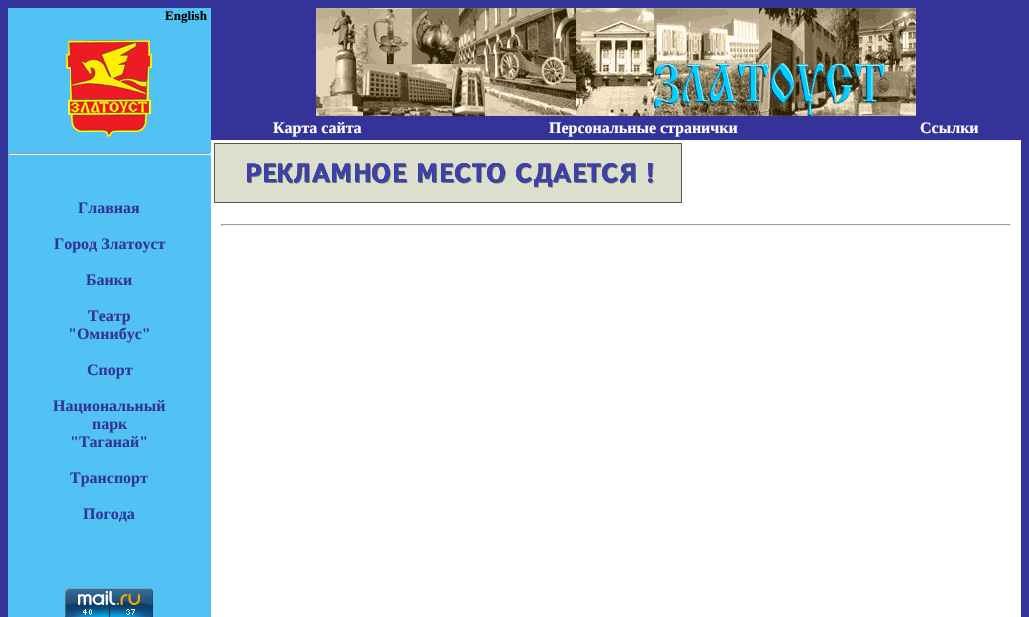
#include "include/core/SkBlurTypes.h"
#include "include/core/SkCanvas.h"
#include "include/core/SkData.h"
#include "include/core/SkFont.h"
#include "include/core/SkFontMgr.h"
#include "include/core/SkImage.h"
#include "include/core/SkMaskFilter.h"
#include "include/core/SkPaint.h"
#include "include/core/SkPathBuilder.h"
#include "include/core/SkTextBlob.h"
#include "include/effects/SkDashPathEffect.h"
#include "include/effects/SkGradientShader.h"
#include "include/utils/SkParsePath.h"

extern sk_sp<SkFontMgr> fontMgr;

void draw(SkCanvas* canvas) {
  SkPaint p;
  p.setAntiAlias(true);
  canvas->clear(SkColorSetRGB(51, 51, 153));
  p.setColor(SK_ColorWHITE);
  canvas->drawRect(SkRect::MakeLTRB(211, 140, 1021, 617), p);
  p.setColor(SkColorSetRGB(82, 194, 244));
  canvas->drawRect(SkRect::MakeLTRB(8, 8, 211, 617), p);
  canvas->drawImageRect(SkImages::DeferredFromEncodedData(SkData::MakeFromFileName("images/1.png")), SkRect::MakeLTRB(66, 40, 152, 137), SkSamplingOptions());
  p.setColor(SkColorSetRGB(159, 159, 159));
  canvas->drawRect(SkRect::MakeLTRB(8, 153, 211, 154), p);
  p.setColor(SkColorSetRGB(238, 238, 238));
  canvas->drawRect(SkRect::MakeLTRB(210, 153, 211, 155), p);
  canvas->drawRect(SkRect::MakeLTRB(8, 154, 211, 155), p);
  p.setColor(SkColorSetRGB(159, 159, 159));
  canvas->drawRect(SkRect::MakeLTRB(8, 153, 9, 155), p);
  canvas->drawImageRect(SkImages::DeferredFromEncodedData(SkData::MakeFromFileName("images/2.png")), SkRect::MakeLTRB(65, 588, 153, 617), SkSamplingOptions());
  canvas->drawImageRect(SkImages::DeferredFromEncodedData(SkData::MakeFromFileName("images/3.png")), SkRect::MakeLTRB(316, 8, 916, 116), SkSamplingOptions());
  canvas->drawImageRect(SkImages::DeferredFromEncodedData(SkData::MakeFromFileName("images/4.png")), SkRect::MakeLTRB(214, 143, 682, 203), SkSamplingOptions());
  canvas->drawRect(SkRect::MakeLTRB(221, 224, 1011, 225), p);
  p.setColor(SkColorSetRGB(238, 238, 238));
  canvas->drawRect(SkRect::MakeLTRB(1010, 224, 1011, 226), p);
  canvas->drawRect(SkRect::MakeLTRB(221, 225, 1011, 226), p);
  p.setColor(SkColorSetRGB(159, 159, 159));
  canvas->drawRect(SkRect::MakeLTRB(221, 224, 222, 226), p);
  SkFont font1(fontMgr->matchFamilyStyle("Liberation Serif", SkFontStyle::Bold()), 13);
  font1.setSubpixel(true);
  p.setColor(SK_ColorBLACK);
  canvas->drawString("English", 165, 20, font1, p);
  SkFont font2(fontMgr->matchFamilyStyle("Liberation Serif", SkFontStyle::Bold()), 16);
  font2.setSubpixel(true);
  p.setColor(SkColorSetRGB(51, 51, 153));
  canvas->drawString("Главная", 78, 213, font2, p);
  canvas->drawString("Город Златоуст", 54, 249, font2, p);
  canvas->drawString("Банки", 86, 285, font2, p);
  canvas->drawString("Театр", 88, 321, font2, p);
  canvas->drawString("\"Омнибус\"", 68, 339, font2, p);
  canvas->drawString("Спорт", 87, 375, font2, p);
  canvas->drawString("Национальный", 53, 411, font2, p);
  canvas->drawString("парк", 92, 429, font2, p);
  canvas->drawString("\"Таганай\"", 70, 447, font2, p);
  canvas->drawString("Транспорт", 70, 483, font2, p);
  canvas->drawString("Погода", 83, 519, font2, p);
  p.setColor(SK_ColorWHITE);
  canvas->drawString("Карта сайта", 273, 133, font2, p);
  canvas->drawString("Персональные странички", 549, 133, font2, p);
  canvas->drawString("Ссылки", 920, 133, font2, p);
}
